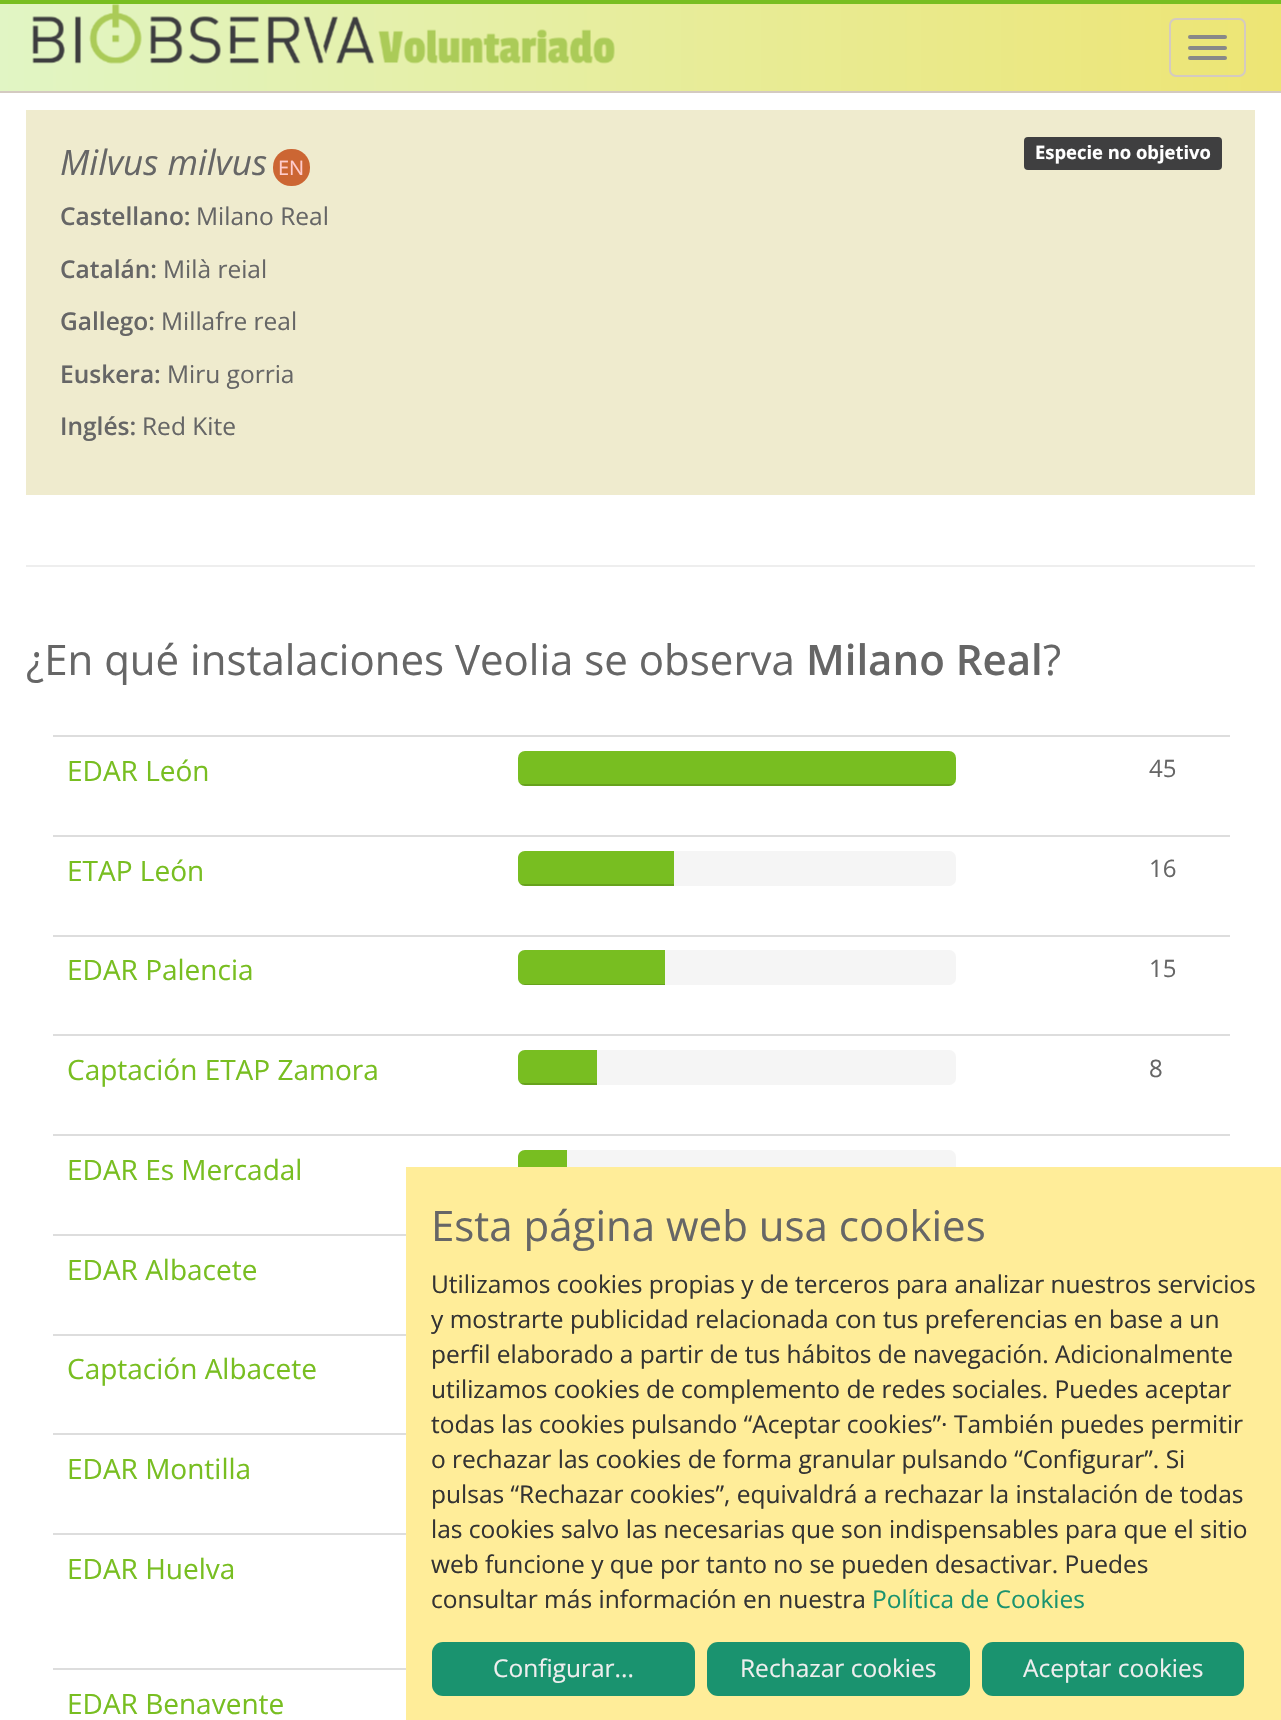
#include "include/core/SkBlurTypes.h"
#include "include/core/SkCanvas.h"
#include "include/core/SkData.h"
#include "include/core/SkFont.h"
#include "include/core/SkFontMgr.h"
#include "include/core/SkImage.h"
#include "include/core/SkMaskFilter.h"
#include "include/core/SkPaint.h"
#include "include/core/SkPathBuilder.h"
#include "include/core/SkTextBlob.h"
#include "include/effects/SkDashPathEffect.h"
#include "include/effects/SkGradientShader.h"
#include "include/utils/SkParsePath.h"

extern sk_sp<SkFontMgr> fontMgr;

void draw(SkCanvas* canvas) {
  SkPaint p;
  p.setAntiAlias(true);
  canvas->clear(SK_ColorWHITE);
  {
    const SkColor colors[] = {SkColorSetRGB(237, 229, 116), SkColorSetRGB(225, 245, 196)};
    const float stops[] = {0, 1};
    const SkPoint ends[] = {{1281, 47}, {0, 47}};
    p.setShader(SkGradientShader::MakeLinear(ends, colors, stops, 2, SkTileMode::kClamp));
    p.setAlpha(255);
  }
  canvas->drawRect(SkRect::MakeLTRB(0, 4, 1281, 91), p);
  p.setShader(nullptr);
  p.setColor(SkColorSetRGB(120, 190, 33));
  canvas->drawRect(SkRect::MakeLTRB(0, 0, 1281, 4), p);
  p.setColor(SkColorSetRGB(212, 202, 193));
  canvas->drawRect(SkRect::MakeLTRB(0, 91, 1281, 93), p);
  canvas->drawImageRect(SkImages::DeferredFromEncodedData(SkData::MakeFromFileName("images/1.png")), SkRect::MakeLTRB(32, 4, 615, 64), SkSamplingOptions());
  p.setStyle(SkPaint::kStroke_Style);
  p.setStrokeWidth(2);
  canvas->drawRoundRect(SkRect::MakeLTRB(1170, 19, 1245, 76), 6, 6, p);
  p.setStyle(SkPaint::kFill_Style);
  p.setColor(SkColorSetRGB(136, 136, 136));
  canvas->drawRoundRect(SkRect::MakeLTRB(1188, 35, 1227, 39), 2, 2, p);
  canvas->drawRoundRect(SkRect::MakeLTRB(1188, 46, 1227, 50), 2, 2, p);
  canvas->drawRoundRect(SkRect::MakeLTRB(1188, 56, 1227, 60), 2, 2, p);
  p.setColor(SkColorSetRGB(239, 235, 206));
  canvas->drawRect(SkRect::MakeLTRB(26, 110, 1255, 495), p);
  p.setColor(SkColorSetRGB(204, 102, 51));
  canvas->drawRoundRect(SkRect::MakeLTRB(273, 149, 310, 186), 18, 18, p);
  p.setColor(SkColorSetRGB(63, 63, 64));
  canvas->drawRoundRect(SkRect::MakeLTRB(1024, 137, 1222, 170), 4, 4, p);
  p.setColor(SkColorSetRGB(238, 238, 238));
  canvas->drawRect(SkRect::MakeLTRB(26, 565, 1255, 567), p);
  p.setColor(SkColorSetRGB(120, 190, 33));
  canvas->drawRoundRect(SkRect::MakeLTRB(518, 751, 956, 786), 7, 7, p);
  canvas->save();
  canvas->clipPath(SkPathBuilder().moveTo(525, 751).lineTo(949, 751).cubicTo(953, 751, 956, 754, 956, 758).lineTo(956, 779).cubicTo(956, 783, 953, 786, 949, 786).lineTo(525, 786).cubicTo(521, 786, 518, 783, 518, 779).lineTo(518, 758).cubicTo(518, 754, 521, 751, 525, 751).close().detach(), true);
  p.setColor(SkColorSetARGB(38, 0, 0, 0));
  canvas->drawRect(SkRect::MakeLTRB(518, 784, 956, 786), p);
  canvas->restore();
  p.setColor(SkColorSetRGB(221, 221, 221));
  canvas->drawRect(SkRect::MakeLTRB(53, 735, 1230, 737), p);
  p.setColor(SkColorSetRGB(245, 245, 245));
  canvas->drawRoundRect(SkRect::MakeLTRB(518, 851, 956, 886), 7, 7, p);
  p.setColor(SkColorSetRGB(120, 190, 33));
  canvas->drawPath(SkPathBuilder().moveTo(525, 851).lineTo(674, 851).lineTo(674, 886).lineTo(525, 886).cubicTo(521, 886, 518, 883, 518, 879).lineTo(518, 858).cubicTo(518, 854, 521, 851, 525, 851).close().detach(), p);
  canvas->save();
  canvas->clipPath(SkPathBuilder().moveTo(525, 851).lineTo(949, 851).cubicTo(953, 851, 956, 854, 956, 858).lineTo(956, 879).cubicTo(956, 883, 953, 886, 949, 886).lineTo(525, 886).cubicTo(521, 886, 518, 883, 518, 879).lineTo(518, 858).cubicTo(518, 854, 521, 851, 525, 851).close().detach(), true);
  p.setColor(SkColorSetARGB(38, 0, 0, 0));
  canvas->drawRect(SkRect::MakeLTRB(518, 884, 674, 886), p);
  canvas->restore();
  p.setColor(SkColorSetRGB(221, 221, 221));
  canvas->drawRect(SkRect::MakeLTRB(53, 835, 1230, 837), p);
  p.setColor(SkColorSetRGB(245, 245, 245));
  canvas->drawRoundRect(SkRect::MakeLTRB(518, 950, 956, 985), 7, 7, p);
  p.setColor(SkColorSetRGB(120, 190, 33));
  canvas->drawPath(SkPathBuilder().moveTo(525, 950).lineTo(665, 950).lineTo(665, 985).lineTo(525, 985).cubicTo(521, 985, 518, 982, 518, 978).lineTo(518, 957).cubicTo(518, 953, 521, 950, 525, 950).close().detach(), p);
  canvas->save();
  canvas->clipPath(SkPathBuilder().moveTo(525, 950).lineTo(949, 950).cubicTo(953, 950, 956, 953, 956, 957).lineTo(956, 978).cubicTo(956, 982, 953, 985, 949, 985).lineTo(525, 985).cubicTo(521, 985, 518, 982, 518, 978).lineTo(518, 957).cubicTo(518, 953, 521, 950, 525, 950).close().detach(), true);
  p.setColor(SkColorSetARGB(38, 0, 0, 0));
  canvas->drawRect(SkRect::MakeLTRB(518, 984, 665, 985), p);
  canvas->restore();
  p.setColor(SkColorSetRGB(221, 221, 221));
  canvas->drawRect(SkRect::MakeLTRB(53, 935, 1230, 937), p);
  p.setColor(SkColorSetRGB(245, 245, 245));
  canvas->drawRoundRect(SkRect::MakeLTRB(518, 1050, 956, 1085), 7, 7, p);
  p.setColor(SkColorSetRGB(120, 190, 33));
  canvas->drawPath(SkPathBuilder().moveTo(525, 1050).lineTo(597, 1050).lineTo(597, 1085).lineTo(525, 1085).cubicTo(521, 1085, 518, 1082, 518, 1078).lineTo(518, 1057).cubicTo(518, 1053, 521, 1050, 525, 1050).close().detach(), p);
  canvas->save();
  canvas->clipPath(SkPathBuilder().moveTo(525, 1050).lineTo(949, 1050).cubicTo(953, 1050, 956, 1053, 956, 1057).lineTo(956, 1078).cubicTo(956, 1082, 953, 1085, 949, 1085).lineTo(525, 1085).cubicTo(521, 1085, 518, 1082, 518, 1078).lineTo(518, 1057).cubicTo(518, 1053, 521, 1050, 525, 1050).close().detach(), true);
  p.setColor(SkColorSetARGB(38, 0, 0, 0));
  canvas->drawRect(SkRect::MakeLTRB(518, 1083, 597, 1085), p);
  canvas->restore();
  p.setColor(SkColorSetRGB(221, 221, 221));
  canvas->drawRect(SkRect::MakeLTRB(53, 1034, 1230, 1036), p);
  canvas->drawRect(SkRect::MakeLTRB(53, 1134, 1230, 1136), p);
  p.setColor(SkColorSetRGB(245, 245, 245));
  canvas->drawRoundRect(SkRect::MakeLTRB(518, 1150, 956, 1185), 7, 7, p);
  p.setColor(SkColorSetRGB(120, 190, 33));
  canvas->drawPath(SkPathBuilder().moveTo(525, 1150).lineTo(567, 1150).lineTo(567, 1185).lineTo(525, 1185).cubicTo(521, 1185, 518, 1182, 518, 1178).lineTo(518, 1157).cubicTo(518, 1153, 521, 1150, 525, 1150).close().detach(), p);
  p.setColor(SkColorSetRGB(221, 221, 221));
  canvas->drawRect(SkRect::MakeLTRB(53, 1234, 406, 1236), p);
  canvas->drawRect(SkRect::MakeLTRB(53, 1334, 406, 1336), p);
  canvas->drawRect(SkRect::MakeLTRB(53, 1433, 406, 1435), p);
  canvas->drawRect(SkRect::MakeLTRB(53, 1533, 406, 1535), p);
  canvas->drawRect(SkRect::MakeLTRB(53, 1668, 406, 1670), p);
  p.setColor(SkColorSetRGB(255, 237, 153));
  canvas->drawRect(SkRect::MakeLTRB(406, 1167, 1281, 1720), p);
  p.setColor(SkColorSetRGB(26, 147, 111));
  canvas->drawRoundRect(SkRect::MakeLTRB(432, 1642, 695, 1696), 11, 11, p);
  canvas->drawRoundRect(SkRect::MakeLTRB(707, 1642, 970, 1696), 11, 11, p);
  canvas->drawRoundRect(SkRect::MakeLTRB(982, 1642, 1244, 1696), 11, 11, p);
  SkFont font1(fontMgr->matchFamilyStyle("Open Sans", SkFontStyle::Italic()), 35);
  font1.setSubpixel(true);
  p.setColor(SkColorSetRGB(102, 102, 102));
  canvas->drawString("Milvus milvus", 60, 175, font1, p);
  SkFont font2(fontMgr->matchFamilyStyle("Open Sans", SkFontStyle::Normal()), 20);
  font2.setSubpixel(true);
  p.setColor(SkColorSetRGB(255, 204, 204));
  canvas->drawString("EN", 278, 175, font2, p);
  SkFont font3(fontMgr->matchFamilyStyle("Open Sans", SkFontStyle::Bold()), 18.4f);
  font3.setSubpixel(true);
  p.setColor(SK_ColorWHITE);
  canvas->drawString("Especie no objetivo", 1035, 159, font3, p);
  SkFont font4(fontMgr->matchFamilyStyle("Open Sans", SkFontStyle(600, SkFontStyle::kNormal_Width, SkFontStyle::kUpright_Slant)), 24.5f);
  font4.setSubpixel(true);
  p.setColor(SkColorSetRGB(102, 102, 102));
  canvas->drawString("Castellano:", 60, 225, font4, p);
  SkFont font5(fontMgr->matchFamilyStyle("Open Sans", SkFontStyle::Normal()), 24.5f);
  font5.setSubpixel(true);
  canvas->drawString("Milano Real", 196, 225, font5, p);
  canvas->drawString("Catalán:", 60, 278, font4, p);
  canvas->drawString("Milà reial", 163, 278, font5, p);
  canvas->drawString("Gallego:", 60, 330, font4, p);
  canvas->drawString("Millafre real", 161, 330, font5, p);
  canvas->drawString("Euskera:", 60, 383, font4, p);
  canvas->drawString("Miru gorria", 167, 383, font5, p);
  canvas->drawString("Inglés:", 60, 435, font4, p);
  canvas->drawString("Red Kite", 142, 435, font5, p);
  SkFont font6(fontMgr->matchFamilyStyle("Open Sans", SkFontStyle::Normal()), 42);
  font6.setSubpixel(true);
  canvas->drawString("¿En qué instalaciones Veolia se observa", 26, 675, font6, p);
  SkFont font7(fontMgr->matchFamilyStyle("Open Sans", SkFontStyle(600, SkFontStyle::kNormal_Width, SkFontStyle::kUpright_Slant)), 42);
  font7.setSubpixel(true);
  canvas->drawString("Milano Real", 806, 675, font7, p);
  canvas->drawString("?", 1043, 675, font6, p);
  SkFont font8(fontMgr->matchFamilyStyle("Open Sans", SkFontStyle::Normal()), 28);
  font8.setSubpixel(true);
  p.setColor(SkColorSetRGB(120, 190, 33));
  canvas->drawString("EDAR León", 67, 781, font8, p);
  SkFont font9(fontMgr->matchFamilyStyle("Open Sans", SkFontStyle::Normal()), 24);
  font9.setSubpixel(true);
  p.setColor(SkColorSetRGB(102, 102, 102));
  canvas->drawString("45", 1149, 777, font9, p);
  p.setColor(SkColorSetRGB(120, 190, 33));
  canvas->drawString("ETAP León", 67, 881, font8, p);
  p.setColor(SkColorSetRGB(102, 102, 102));
  canvas->drawString("16", 1149, 877, font9, p);
  p.setColor(SkColorSetRGB(120, 190, 33));
  canvas->drawString("EDAR Palencia", 67, 980, font8, p);
  p.setColor(SkColorSetRGB(102, 102, 102));
  canvas->drawString("15", 1149, 977, font9, p);
  p.setColor(SkColorSetRGB(120, 190, 33));
  canvas->drawString("Captación ETAP Zamora", 67, 1080, font8, p);
  p.setColor(SkColorSetRGB(102, 102, 102));
  canvas->drawString("8", 1149, 1077, font9, p);
  p.setColor(SkColorSetRGB(120, 190, 33));
  canvas->drawString("EDAR Es Mercadal", 67, 1180, font8, p);
  canvas->drawString("EDAR Albacete", 67, 1280, font8, p);
  canvas->drawString("Captación Albacete", 67, 1379, font8, p);
  canvas->drawString("EDAR Montilla", 67, 1479, font8, p);
  canvas->drawString("EDAR Huelva", 67, 1579, font8, p);
  canvas->drawString("EDAR Benavente", 67, 1714, font8, p);
  p.setColor(SkColorSetRGB(102, 102, 102));
  canvas->drawString("Esta página web usa cookies", 431, 1241, font6, p);
  p.setColor(SkColorSetRGB(51, 51, 51));
  canvas->drawString("Utilizamos cookies propias y de terceros para analizar nuestros servicios", 431, 1293, font5, p);
  canvas->drawString("y mostrarte publicidad relacionada con tus preferencias en base a un", 431, 1328, font5, p);
  canvas->drawString("perfil elaborado a partir de tus hábitos de navegación. Adicionalmente", 431, 1363, font5, p);
  canvas->drawString("utilizamos cookies de complemento de redes sociales. Puedes aceptar", 431, 1398, font5, p);
  canvas->drawString("todas las cookies pulsando “Aceptar cookies”· También puedes permitir", 431, 1433, font5, p);
  canvas->drawString("o rechazar las cookies de forma granular pulsando “Configurar”. Si", 431, 1468, font5, p);
  canvas->drawString("pulsas “Rechazar cookies”, equivaldrá a rechazar la instalación de todas", 431, 1503, font5, p);
  canvas->drawString("las cookies salvo las necesarias que son indispensables para que el sitio", 431, 1538, font5, p);
  canvas->drawString("web funcione y que por tanto no se pueden desactivar. Puedes", 431, 1573, font5, p);
  canvas->drawString("consultar más información en nuestra", 431, 1608, font5, p);
  p.setColor(SkColorSetRGB(26, 147, 111));
  canvas->drawString("Política de Cookies", 872, 1608, font5, p);
  p.setColor(SkColorSetRGB(238, 238, 238));
  canvas->drawString("Configurar...", 493, 1677, font5, p);
  canvas->drawString("Rechazar cookies", 740, 1677, font5, p);
  canvas->drawString("Aceptar cookies", 1023, 1677, font5, p);
}
